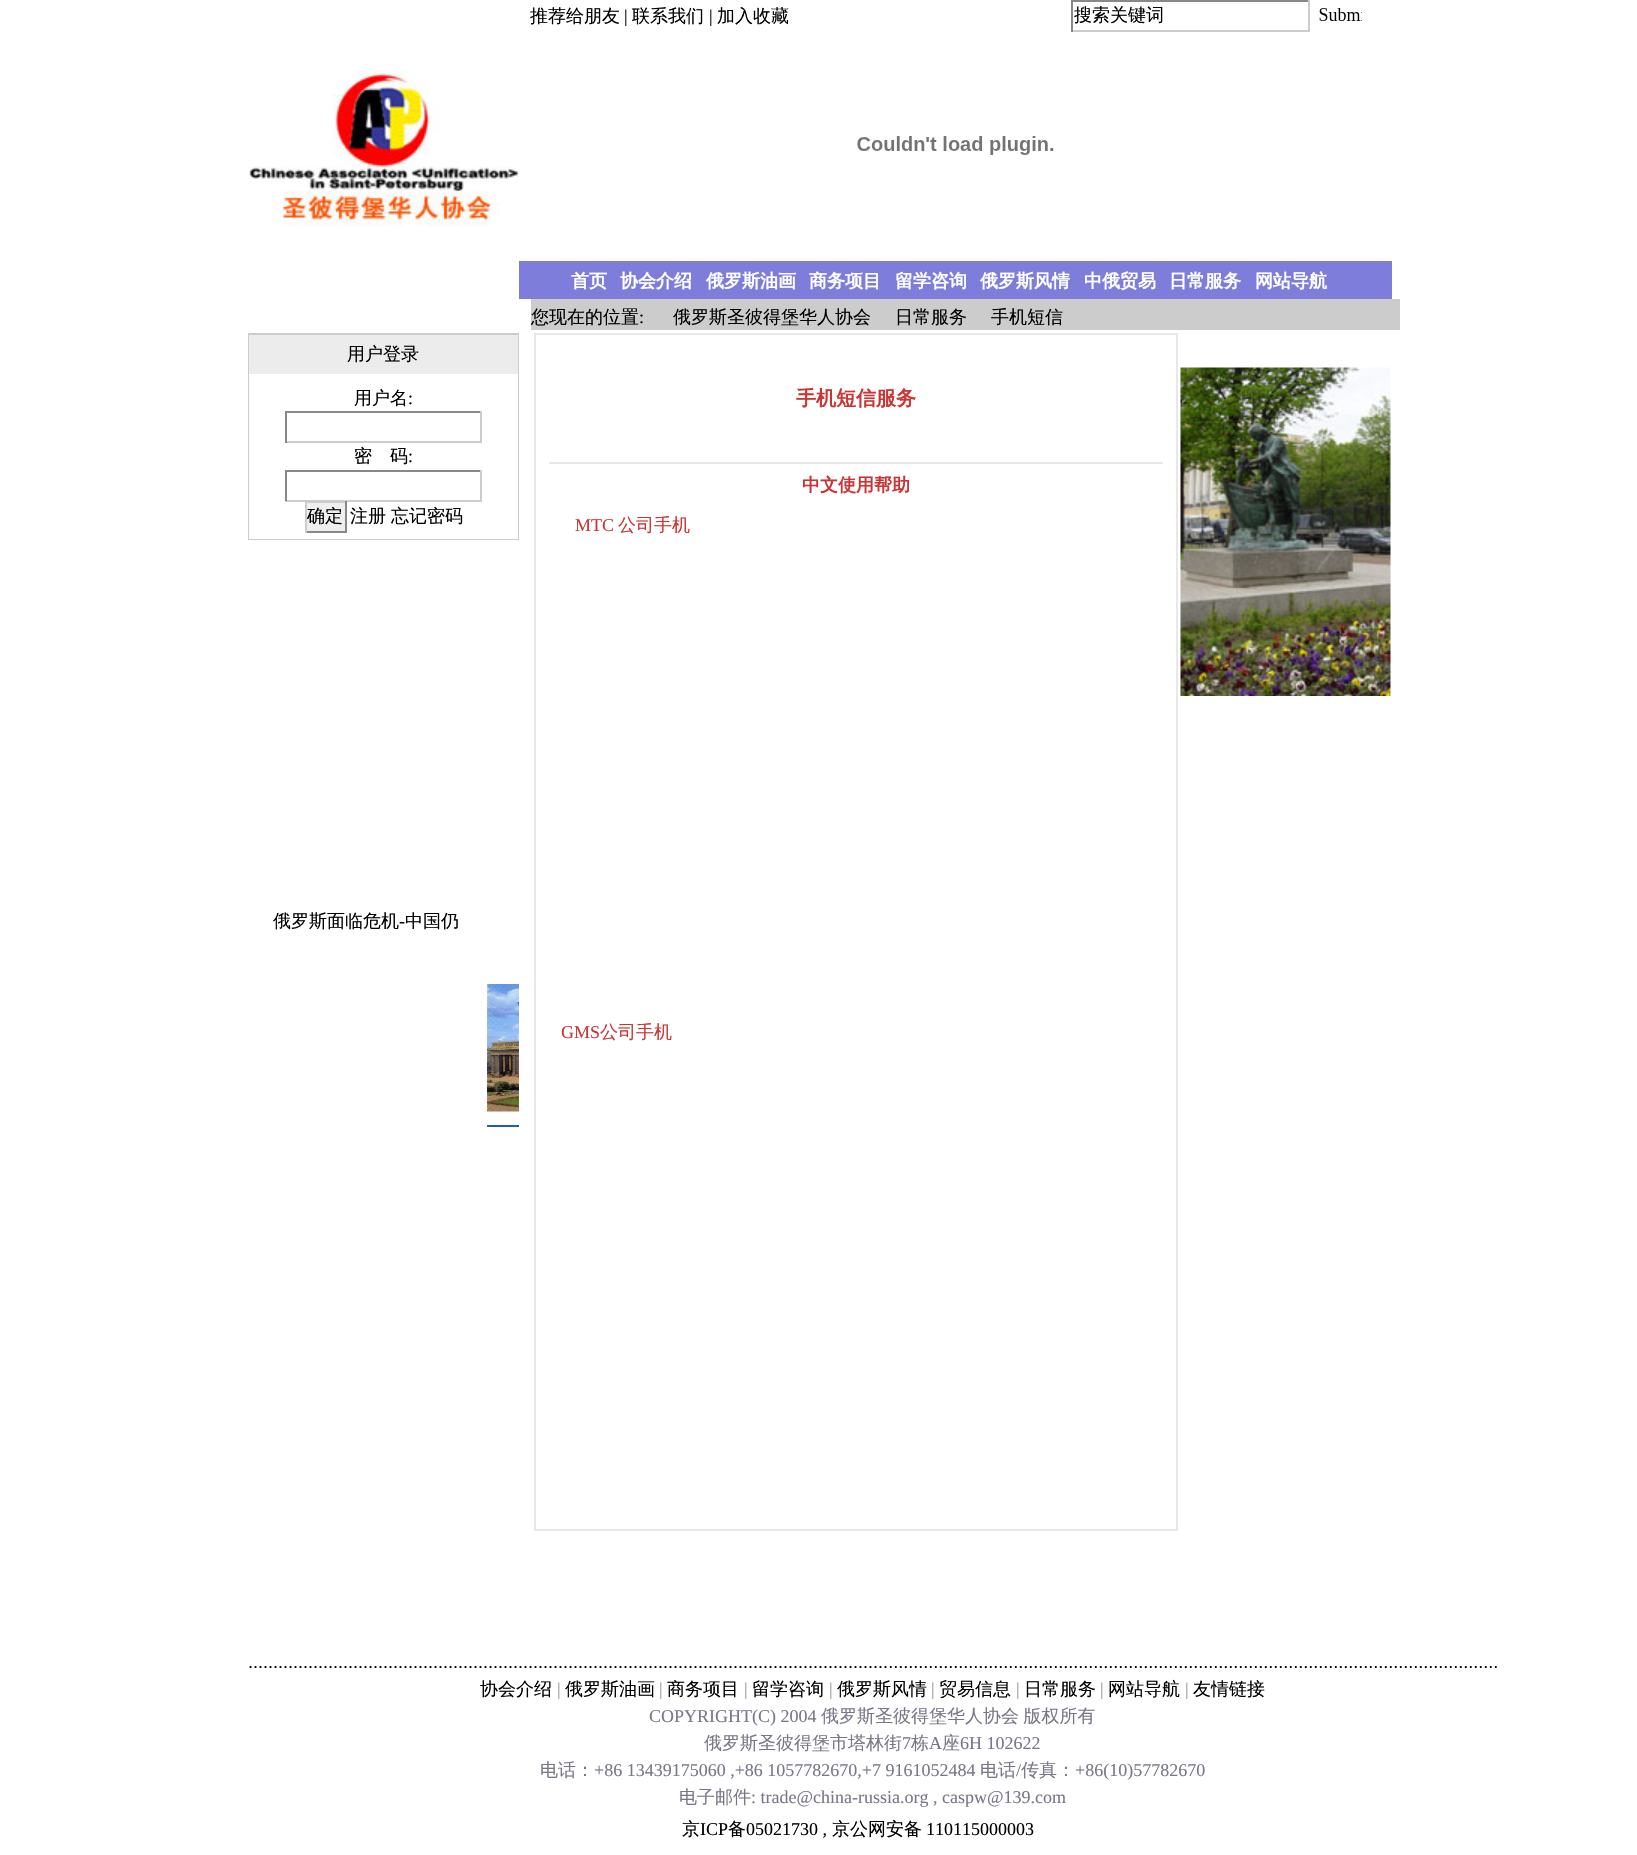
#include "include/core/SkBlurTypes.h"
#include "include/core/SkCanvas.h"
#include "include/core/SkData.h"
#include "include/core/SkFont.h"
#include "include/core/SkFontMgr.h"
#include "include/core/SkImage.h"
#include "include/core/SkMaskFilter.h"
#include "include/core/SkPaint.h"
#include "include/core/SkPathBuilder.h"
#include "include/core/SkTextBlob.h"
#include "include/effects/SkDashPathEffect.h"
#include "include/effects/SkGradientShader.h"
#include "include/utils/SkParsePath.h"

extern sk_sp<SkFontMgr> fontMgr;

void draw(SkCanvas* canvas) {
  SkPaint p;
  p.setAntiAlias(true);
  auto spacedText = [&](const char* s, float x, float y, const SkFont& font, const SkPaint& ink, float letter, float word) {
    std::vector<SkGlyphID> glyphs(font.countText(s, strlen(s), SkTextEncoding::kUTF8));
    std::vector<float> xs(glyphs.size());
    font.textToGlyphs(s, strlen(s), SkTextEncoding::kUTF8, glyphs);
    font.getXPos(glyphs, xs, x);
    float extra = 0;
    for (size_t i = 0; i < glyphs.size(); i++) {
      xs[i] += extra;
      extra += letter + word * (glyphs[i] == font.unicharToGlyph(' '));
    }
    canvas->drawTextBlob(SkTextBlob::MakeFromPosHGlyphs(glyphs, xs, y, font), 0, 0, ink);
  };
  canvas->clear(SK_ColorWHITE);
  p.setColor(SkColorSetRGB(136, 136, 136));
  canvas->drawRect(SkRect::MakeLTRB(1071, 0, 1310, 2), p);
  p.setColor(SkColorSetRGB(204, 204, 204));
  canvas->drawRect(SkRect::MakeLTRB(1308, 0, 1310, 32), p);
  canvas->drawRect(SkRect::MakeLTRB(1071, 30, 1310, 32), p);
  p.setColor(SkColorSetRGB(136, 136, 136));
  canvas->drawRect(SkRect::MakeLTRB(1071, 0, 1073, 32), p);
  canvas->drawImageRect(SkImages::DeferredFromEncodedData(SkData::MakeFromFileName("images/1.png")), SkRect::MakeLTRB(1319, 8, 1362, 21), SkSamplingOptions());
  canvas->drawImageRect(SkImages::DeferredFromEncodedData(SkData::MakeFromFileName("images/2.png")), SkRect::MakeLTRB(248, 70, 519, 227), SkSamplingOptions());
  canvas->drawImageRect(SkImages::DeferredFromEncodedData(SkData::MakeFromFileName("images/3.png")), SkRect::MakeLTRB(857, 136, 1054, 155), SkSamplingOptions());
  p.setColor(SkColorSetRGB(126, 125, 219));
  canvas->drawRect(SkRect::MakeLTRB(519, 261, 1392, 299), p);
  p.setColor(SkColorSetRGB(204, 204, 204));
  canvas->drawRect(SkRect::MakeLTRB(248, 333, 519, 540), p);
  p.setColor(SK_ColorWHITE);
  canvas->drawRect(SkRect::MakeLTRB(249, 374, 518, 539), p);
  p.setColor(SkColorSetRGB(236, 236, 236));
  canvas->drawRect(SkRect::MakeLTRB(249, 335, 518, 374), p);
  p.setColor(SkColorSetRGB(136, 136, 136));
  canvas->drawRect(SkRect::MakeLTRB(285, 411, 482, 413), p);
  p.setColor(SkColorSetRGB(204, 204, 204));
  canvas->drawRect(SkRect::MakeLTRB(480, 411, 482, 443), p);
  canvas->drawRect(SkRect::MakeLTRB(285, 441, 482, 443), p);
  p.setColor(SkColorSetRGB(136, 136, 136));
  canvas->drawRect(SkRect::MakeLTRB(285, 411, 287, 443), p);
  canvas->drawRect(SkRect::MakeLTRB(285, 470, 482, 472), p);
  p.setColor(SkColorSetRGB(204, 204, 204));
  canvas->drawRect(SkRect::MakeLTRB(480, 470, 482, 501), p);
  canvas->drawRect(SkRect::MakeLTRB(285, 500, 482, 502), p);
  p.setColor(SkColorSetRGB(136, 136, 136));
  canvas->drawRect(SkRect::MakeLTRB(285, 470, 287, 501), p);
  p.setColor(SkColorSetRGB(239, 239, 239));
  canvas->drawRect(SkRect::MakeLTRB(307, 503, 345, 531), p);
  p.setColor(SkColorSetRGB(204, 204, 204));
  canvas->drawRect(SkRect::MakeLTRB(305, 502, 347, 503), p);
  p.setColor(SkColorSetRGB(136, 136, 136));
  canvas->drawRect(SkRect::MakeLTRB(345, 501, 347, 533), p);
  canvas->drawRect(SkRect::MakeLTRB(305, 531, 347, 533), p);
  p.setColor(SkColorSetRGB(204, 204, 204));
  canvas->drawRect(SkRect::MakeLTRB(305, 501, 307, 533), p);
  canvas->drawImageRect(SkImages::DeferredFromEncodedData(SkData::MakeFromFileName("images/4.png")), SkRect::MakeLTRB(487, 984, 519, 1112), SkSamplingOptions());
  canvas->drawImageRect(SkImages::DeferredFromEncodedData(SkData::MakeFromFileName("images/5.png")), SkRect::MakeLTRB(487, 1125, 519, 1127), SkSamplingOptions());
  canvas->drawRect(SkRect::MakeLTRB(531, 299, 1400, 330), p);
  p.setColor(SkColorSetRGB(232, 232, 232));
  canvas->drawRect(SkRect::MakeLTRB(534, 333, 1178, 335), p);
  canvas->drawRect(SkRect::MakeLTRB(1176, 333, 1178, 1530), p);
  canvas->drawRect(SkRect::MakeLTRB(534, 1529, 1178, 1531), p);
  canvas->drawRect(SkRect::MakeLTRB(534, 333, 536, 1530), p);
  canvas->drawRect(SkRect::MakeLTRB(549, 462, 1163, 464), p);
  canvas->drawImageRect(SkImages::DeferredFromEncodedData(SkData::MakeFromFileName("images/6.png")), SkRect::MakeLTRB(1180, 367, 1391, 696), SkSamplingOptions());
  SkFont font1(fontMgr->matchFamilyStyle("WenQuanYi Zen Hei", SkFontStyle(500, SkFontStyle::kNormal_Width, SkFontStyle::kUpright_Slant)), 18);
  font1.setSubpixel(true);
  p.setColor(SK_ColorBLACK);
  canvas->drawString("推荐给朋友", 530, 22, font1, p);
  SkFont font2(fontMgr->matchFamilyStyle("Liberation Serif", SkFontStyle::Normal()), 18);
  font2.setSubpixel(true);
  canvas->drawString("|", 624, 22, font2, p);
  canvas->drawString("联系我们", 632, 22, font1, p);
  canvas->drawString("|", 709, 22, font2, p);
  canvas->drawString("加入收藏", 717, 22, font1, p);
  canvas->drawString("搜索关键词", 1074, 21, font1, p);
  SkFont font3(fontMgr->matchFamilyStyle("WenQuanYi Zen Hei", SkFontStyle::Bold()), 18);
  font3.setSubpixel(true);
  p.setColor(SK_ColorWHITE);
  canvas->drawString("首页", 571, 287, font3, p);
  canvas->drawString("协会介绍", 620, 287, font3, p);
  canvas->drawString("俄罗斯油画", 706, 287, font3, p);
  canvas->drawString("商务项目", 809, 287, font3, p);
  canvas->drawString("留学咨询", 895, 287, font3, p);
  canvas->drawString("俄罗斯风情", 980, 287, font3, p);
  canvas->drawString("中俄贸易", 1084, 287, font3, p);
  canvas->drawString("日常服务", 1169, 287, font3, p);
  canvas->drawString("网站导航", 1255, 287, font3, p);
  p.setColor(SK_ColorBLACK);
  canvas->drawString("用户登录", 347, 360, font1, p);
  canvas->drawString("用户名", 354, 404, font1, p);
  canvas->drawString(":", 408, 404, font2, p);
  canvas->drawString("密　码", 354, 462, font1, p);
  canvas->drawString(":", 408, 462, font2, p);
  canvas->drawString("确定", 307, 522, font1, p);
  canvas->drawString("注册", 350, 522, font1, p);
  canvas->drawString("忘记密码", 391, 522, font1, p);
  canvas->drawString("俄罗斯面临危机", 273, 927, font1, p);
  canvas->drawString("-", 399, 927, font2, p);
  canvas->drawString("中国仍", 405, 927, font1, p);
  canvas->drawString("您现在的位置", 531, 323, font1, p);
  canvas->drawString(":", 639, 323, font2, p);
  canvas->drawString("俄罗斯圣彼得堡华人协会", 673, 323, font1, p);
  canvas->drawString("日常服务", 895, 323, font1, p);
  canvas->drawString("手机短信", 991, 323, font1, p);
  SkFont font4(fontMgr->matchFamilyStyle("WenQuanYi Zen Hei", SkFontStyle::Bold()), 20);
  font4.setSubpixel(true);
  p.setColor(SkColorSetRGB(204, 51, 51));
  canvas->drawString("手机短信服务", 796, 405, font4, p);
  canvas->drawString("中文使用帮助", 802, 491, font3, p);
  canvas->drawString("MTC", 575, 531, font2, p);
  canvas->drawString("公司手机", 618, 531, font1, p);
  canvas->drawString("GMS", 561, 1038, font2, p);
  canvas->drawString("公司手机", 600, 1038, font1, p);
  SkFont font5(fontMgr->matchFamilyStyle("Liberation Sans", SkFontStyle::Normal()), 18);
  font5.setSubpixel(true);
  p.setColor(SK_ColorBLACK);
  canvas->drawString("..........................................................................................................................................................................................................................................................", 248, 1668, font5, p);
  canvas->drawString("协会介绍", 480, 1695, font1, p);
  p.setColor(SkColorSetRGB(153, 153, 153));
  canvas->drawString("|", 557, 1695, font2, p);
  p.setColor(SK_ColorBLACK);
  canvas->drawString("俄罗斯油画", 565, 1695, font1, p);
  p.setColor(SkColorSetRGB(153, 153, 153));
  canvas->drawString("|", 659, 1695, font2, p);
  p.setColor(SK_ColorBLACK);
  canvas->drawString("商务项目", 667, 1695, font1, p);
  p.setColor(SkColorSetRGB(153, 153, 153));
  canvas->drawString("|", 744, 1695, font2, p);
  p.setColor(SK_ColorBLACK);
  canvas->drawString("留学咨询", 752, 1695, font1, p);
  p.setColor(SkColorSetRGB(153, 153, 153));
  canvas->drawString("|", 829, 1695, font2, p);
  p.setColor(SK_ColorBLACK);
  canvas->drawString("俄罗斯风情", 837, 1695, font1, p);
  p.setColor(SkColorSetRGB(153, 153, 153));
  canvas->drawString("|", 931, 1695, font2, p);
  p.setColor(SK_ColorBLACK);
  canvas->drawString("贸易信息", 939, 1695, font1, p);
  p.setColor(SkColorSetRGB(153, 153, 153));
  canvas->drawString("|", 1016, 1695, font2, p);
  p.setColor(SK_ColorBLACK);
  canvas->drawString("日常服务", 1024, 1695, font1, p);
  p.setColor(SkColorSetRGB(153, 153, 153));
  canvas->drawString("|", 1100, 1695, font2, p);
  p.setColor(SK_ColorBLACK);
  canvas->drawString("网站导航", 1108, 1695, font1, p);
  p.setColor(SkColorSetRGB(153, 153, 153));
  canvas->drawString("|", 1185, 1695, font2, p);
  p.setColor(SK_ColorBLACK);
  canvas->drawString("友情链接", 1193, 1695, font1, p);
  p.setColor(SkColorSetRGB(119, 119, 136));
  canvas->drawString("COPYRIGHT(C) 2004", 649, 1722, font2, p);
  spacedText("俄罗斯圣彼得堡华人协会 版权所有", 821, 1722, font1, p, 0, -1);
  canvas->drawString("俄罗斯圣彼得堡市塔林街", 704, 1749, font1, p);
  canvas->drawString("7", 902, 1749, font2, p);
  canvas->drawString("栋", 911, 1749, font1, p);
  canvas->drawString("A", 929, 1749, font2, p);
  canvas->drawString("座", 942, 1749, font1, p);
  canvas->drawString("6H 102622", 960, 1749, font2, p);
  canvas->drawString("电话：", 540, 1776, font1, p);
  canvas->drawString("+86 13439175060 ,+86 1057782670,+7 9161052484", 594, 1776, font2, p);
  canvas->drawString("电话", 980, 1776, font1, p);
  canvas->drawString("/", 1016, 1776, font2, p);
  canvas->drawString("传真：", 1021, 1776, font1, p);
  canvas->drawString("+86(10)57782670", 1075, 1776, font2, p);
  canvas->drawString("电子邮件", 679, 1803, font1, p);
  canvas->drawString(": trade@china-russia.org , caspw@139.com", 751, 1803, font2, p);
  p.setColor(SK_ColorBLACK);
  canvas->drawString("京", 682, 1835, font1, p);
  canvas->drawString("ICP", 700, 1835, font2, p);
  canvas->drawString("备", 728, 1835, font1, p);
  canvas->drawString("05021730 ,", 746, 1835, font2, p);
  canvas->drawString("京公网安备", 832, 1835, font1, p);
  canvas->drawString("110115000003", 926, 1835, font2, p);
}
